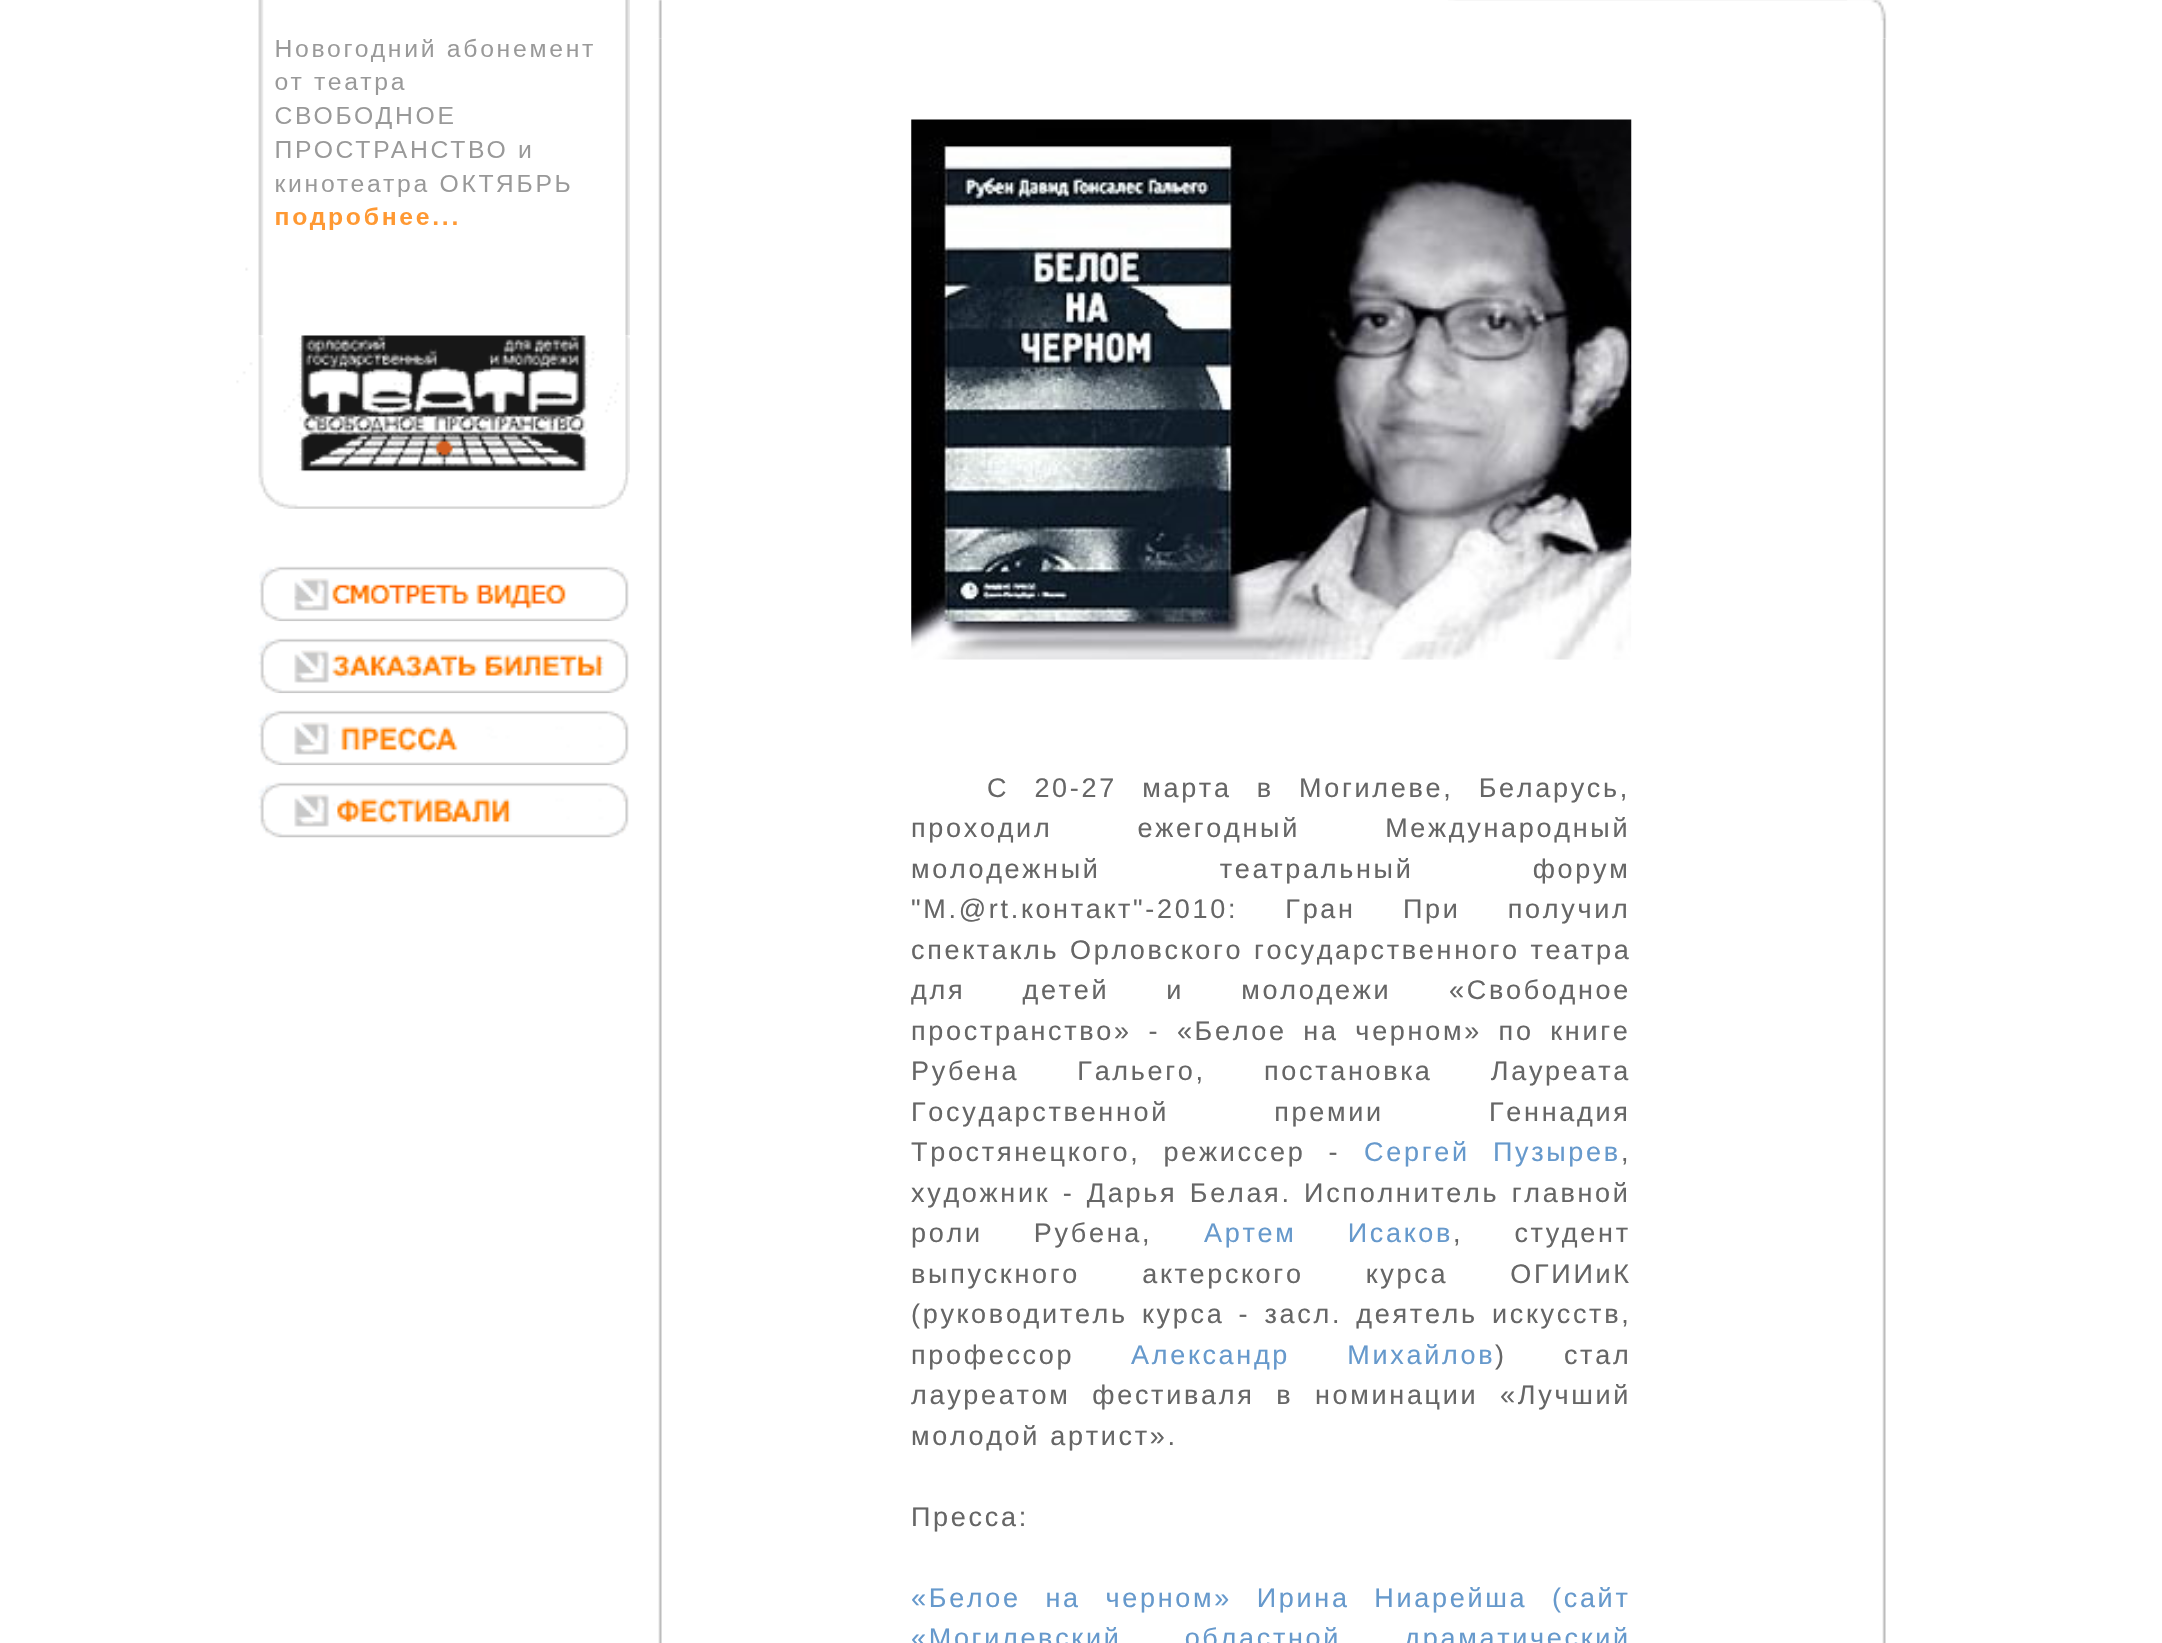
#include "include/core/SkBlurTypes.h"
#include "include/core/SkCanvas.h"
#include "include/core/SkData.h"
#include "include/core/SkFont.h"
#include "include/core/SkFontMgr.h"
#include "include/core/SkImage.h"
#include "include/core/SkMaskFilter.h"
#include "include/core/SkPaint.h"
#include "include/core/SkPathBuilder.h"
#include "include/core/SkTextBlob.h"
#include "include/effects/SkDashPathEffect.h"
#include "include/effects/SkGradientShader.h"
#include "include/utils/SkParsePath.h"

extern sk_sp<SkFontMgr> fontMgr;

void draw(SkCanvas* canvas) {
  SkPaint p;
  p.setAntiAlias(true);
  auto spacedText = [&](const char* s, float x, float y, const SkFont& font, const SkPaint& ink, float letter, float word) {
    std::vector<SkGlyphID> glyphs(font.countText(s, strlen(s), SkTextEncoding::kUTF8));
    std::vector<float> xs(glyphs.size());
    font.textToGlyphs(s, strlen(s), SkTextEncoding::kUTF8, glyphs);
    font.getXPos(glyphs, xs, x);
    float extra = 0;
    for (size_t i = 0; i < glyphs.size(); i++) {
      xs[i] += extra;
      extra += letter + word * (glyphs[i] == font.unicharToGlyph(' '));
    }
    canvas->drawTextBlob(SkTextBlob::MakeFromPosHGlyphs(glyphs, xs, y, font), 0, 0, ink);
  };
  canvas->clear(SK_ColorWHITE);
  canvas->drawImageRect(SkImages::DeferredFromEncodedData(SkData::MakeFromFileName("images/1.png")), SkRect::MakeLTRB(245, 0, 264, 336), SkSamplingOptions());
  canvas->drawImageRect(SkImages::DeferredFromEncodedData(SkData::MakeFromFileName("images/2.png")), SkRect::MakeLTRB(275, 38, 593, 230), SkSamplingOptions());
  canvas->drawImageRect(SkImages::DeferredFromEncodedData(SkData::MakeFromFileName("images/3.png")), SkRect::MakeLTRB(625, 0, 630, 336), SkSamplingOptions());
  canvas->drawImageRect(SkImages::DeferredFromEncodedData(SkData::MakeFromFileName("images/4.png")), SkRect::MakeLTRB(236, 335, 630, 509), SkSamplingOptions());
  canvas->drawImageRect(SkImages::DeferredFromEncodedData(SkData::MakeFromFileName("images/5.png")), SkRect::MakeLTRB(259, 566, 629, 622), SkSamplingOptions());
  canvas->drawImageRect(SkImages::DeferredFromEncodedData(SkData::MakeFromFileName("images/6.png")), SkRect::MakeLTRB(258, 621, 629, 694), SkSamplingOptions());
  canvas->drawImageRect(SkImages::DeferredFromEncodedData(SkData::MakeFromFileName("images/7.png")), SkRect::MakeLTRB(258, 693, 629, 766), SkSamplingOptions());
  canvas->drawImageRect(SkImages::DeferredFromEncodedData(SkData::MakeFromFileName("images/8.png")), SkRect::MakeLTRB(258, 765, 629, 838), SkSamplingOptions());
  canvas->drawImageRect(SkImages::DeferredFromEncodedData(SkData::MakeFromFileName("images/9.png")), SkRect::MakeLTRB(1448, 0, 1876, 1), SkSamplingOptions());
  canvas->drawImageRect(SkImages::DeferredFromEncodedData(SkData::MakeFromFileName("images/10.png")), SkRect::MakeLTRB(658, 0, 662, 39), SkSamplingOptions());
  canvas->drawImageRect(SkImages::DeferredFromEncodedData(SkData::MakeFromFileName("images/14.png")), SkRect::MakeLTRB(1882, 38, 1886, 1643), SkSamplingOptions());
  canvas->drawImageRect(SkImages::DeferredFromEncodedData(SkData::MakeFromFileName("images/11.png")), SkRect::MakeLTRB(1847, 0, 1887, 39), SkSamplingOptions());
  canvas->drawImageRect(SkImages::DeferredFromEncodedData(SkData::MakeFromFileName("images/12.png")), SkRect::MakeLTRB(658, 38, 662, 1643), SkSamplingOptions());
  canvas->drawImageRect(SkImages::DeferredFromEncodedData(SkData::MakeFromFileName("images/13.png")), SkRect::MakeLTRB(911, 119, 1632, 660), SkSamplingOptions());
  SkFont font1(fontMgr->matchFamilyStyle("Liberation Sans", SkFontStyle::Normal()), 27);
  font1.setSubpixel(true);
  p.setColor(SkColorSetRGB(102, 102, 102));
  spacedText("C 20-27 марта в Могилеве, Беларусь,", 987, 797, font1, p, 2.7f, 15);
  spacedText("проходил ежегодный Международный", 911, 837, font1, p, 2.7f, 75);
  spacedText("молодежный театральный форум", 911, 878, font1, p, 2.7f, 109);
  spacedText("\"M.@rt.контакт\"-2010: Гран При получил", 911, 918, font1, p, 2.7f, 37);
  spacedText("спектакль Орловского государственного театра", 911, 959, font1, p, 2.7f, 0.5f);
  spacedText("для детей и молодежи", 911, 999, font1, p, 2.7f, 47);
  spacedText("«Свободное", 1449, 999, font1, p, 2.7f, 0);
  spacedText("пространство» - «Белое на черном» по книге", 911, 1040, font1, p, 2.7f, 6.5f);
  spacedText("Рубена Гальего, постановка Лауреата", 911, 1080, font1, p, 2.7f, 48);
  spacedText("Государственной премии Геннадия", 911, 1121, font1, p, 2.7f, 95);
  spacedText("Тростянецкого, режиссер -", 911, 1161, font1, p, 2.7f, 13);
  p.setColor(SkColorSetRGB(102, 153, 204));
  spacedText("Сергей Пузырев", 1364, 1161, font1, p, 2.7f, 13);
  p.setColor(SkColorSetRGB(102, 102, 102));
  spacedText(",", 1621, 1161, font1, p, 2.7f, 0);
  spacedText("художник - Дарья Белая. Исполнитель главной", 911, 1202, font1, p, 2.7f, 2.25f);
  spacedText("роли Рубена,", 911, 1242, font1, p, 2.7f, 41);
  p.setColor(SkColorSetRGB(102, 153, 204));
  spacedText("Артем Исаков", 1204, 1242, font1, p, 2.7f, 41);
  p.setColor(SkColorSetRGB(102, 102, 102));
  spacedText(", студент", 1453, 1242, font1, p, 2.7f, 41);
  spacedText("выпускного актерского курса ОГИИиК", 911, 1283, font1, p, 2.7f, 52);
  spacedText("(руководитель курса - засл. деятель искусств,", 911, 1323, font1, p, 2.7f, 4);
  spacedText("профессор", 911, 1364, font1, p, 2.7f, 0);
  p.setColor(SkColorSetRGB(102, 153, 204));
  spacedText("Александр Михайлов", 1131, 1364, font1, p, 2.7f, 47);
  p.setColor(SkColorSetRGB(102, 102, 102));
  spacedText(") стал", 1495, 1364, font1, p, 2.7f, 47);
  spacedText("лауреатом фестиваля в номинации «Лучший", 911, 1404, font1, p, 2.7f, 11.5f);
  spacedText("молодой артист».", 911, 1445, font1, p, 2.7f, 0);
  spacedText("Пресса:", 911, 1526, font1, p, 2.7f, 0);
  p.setColor(SkColorSetRGB(102, 153, 204));
  spacedText("«Белое на черном» Ирина Ниарейша (сайт", 911, 1607, font1, p, 2.7f, 14.5f);
  spacedText("«Могилевский областной драматический", 911, 1647, font1, p, 2.7f, 53);
}
